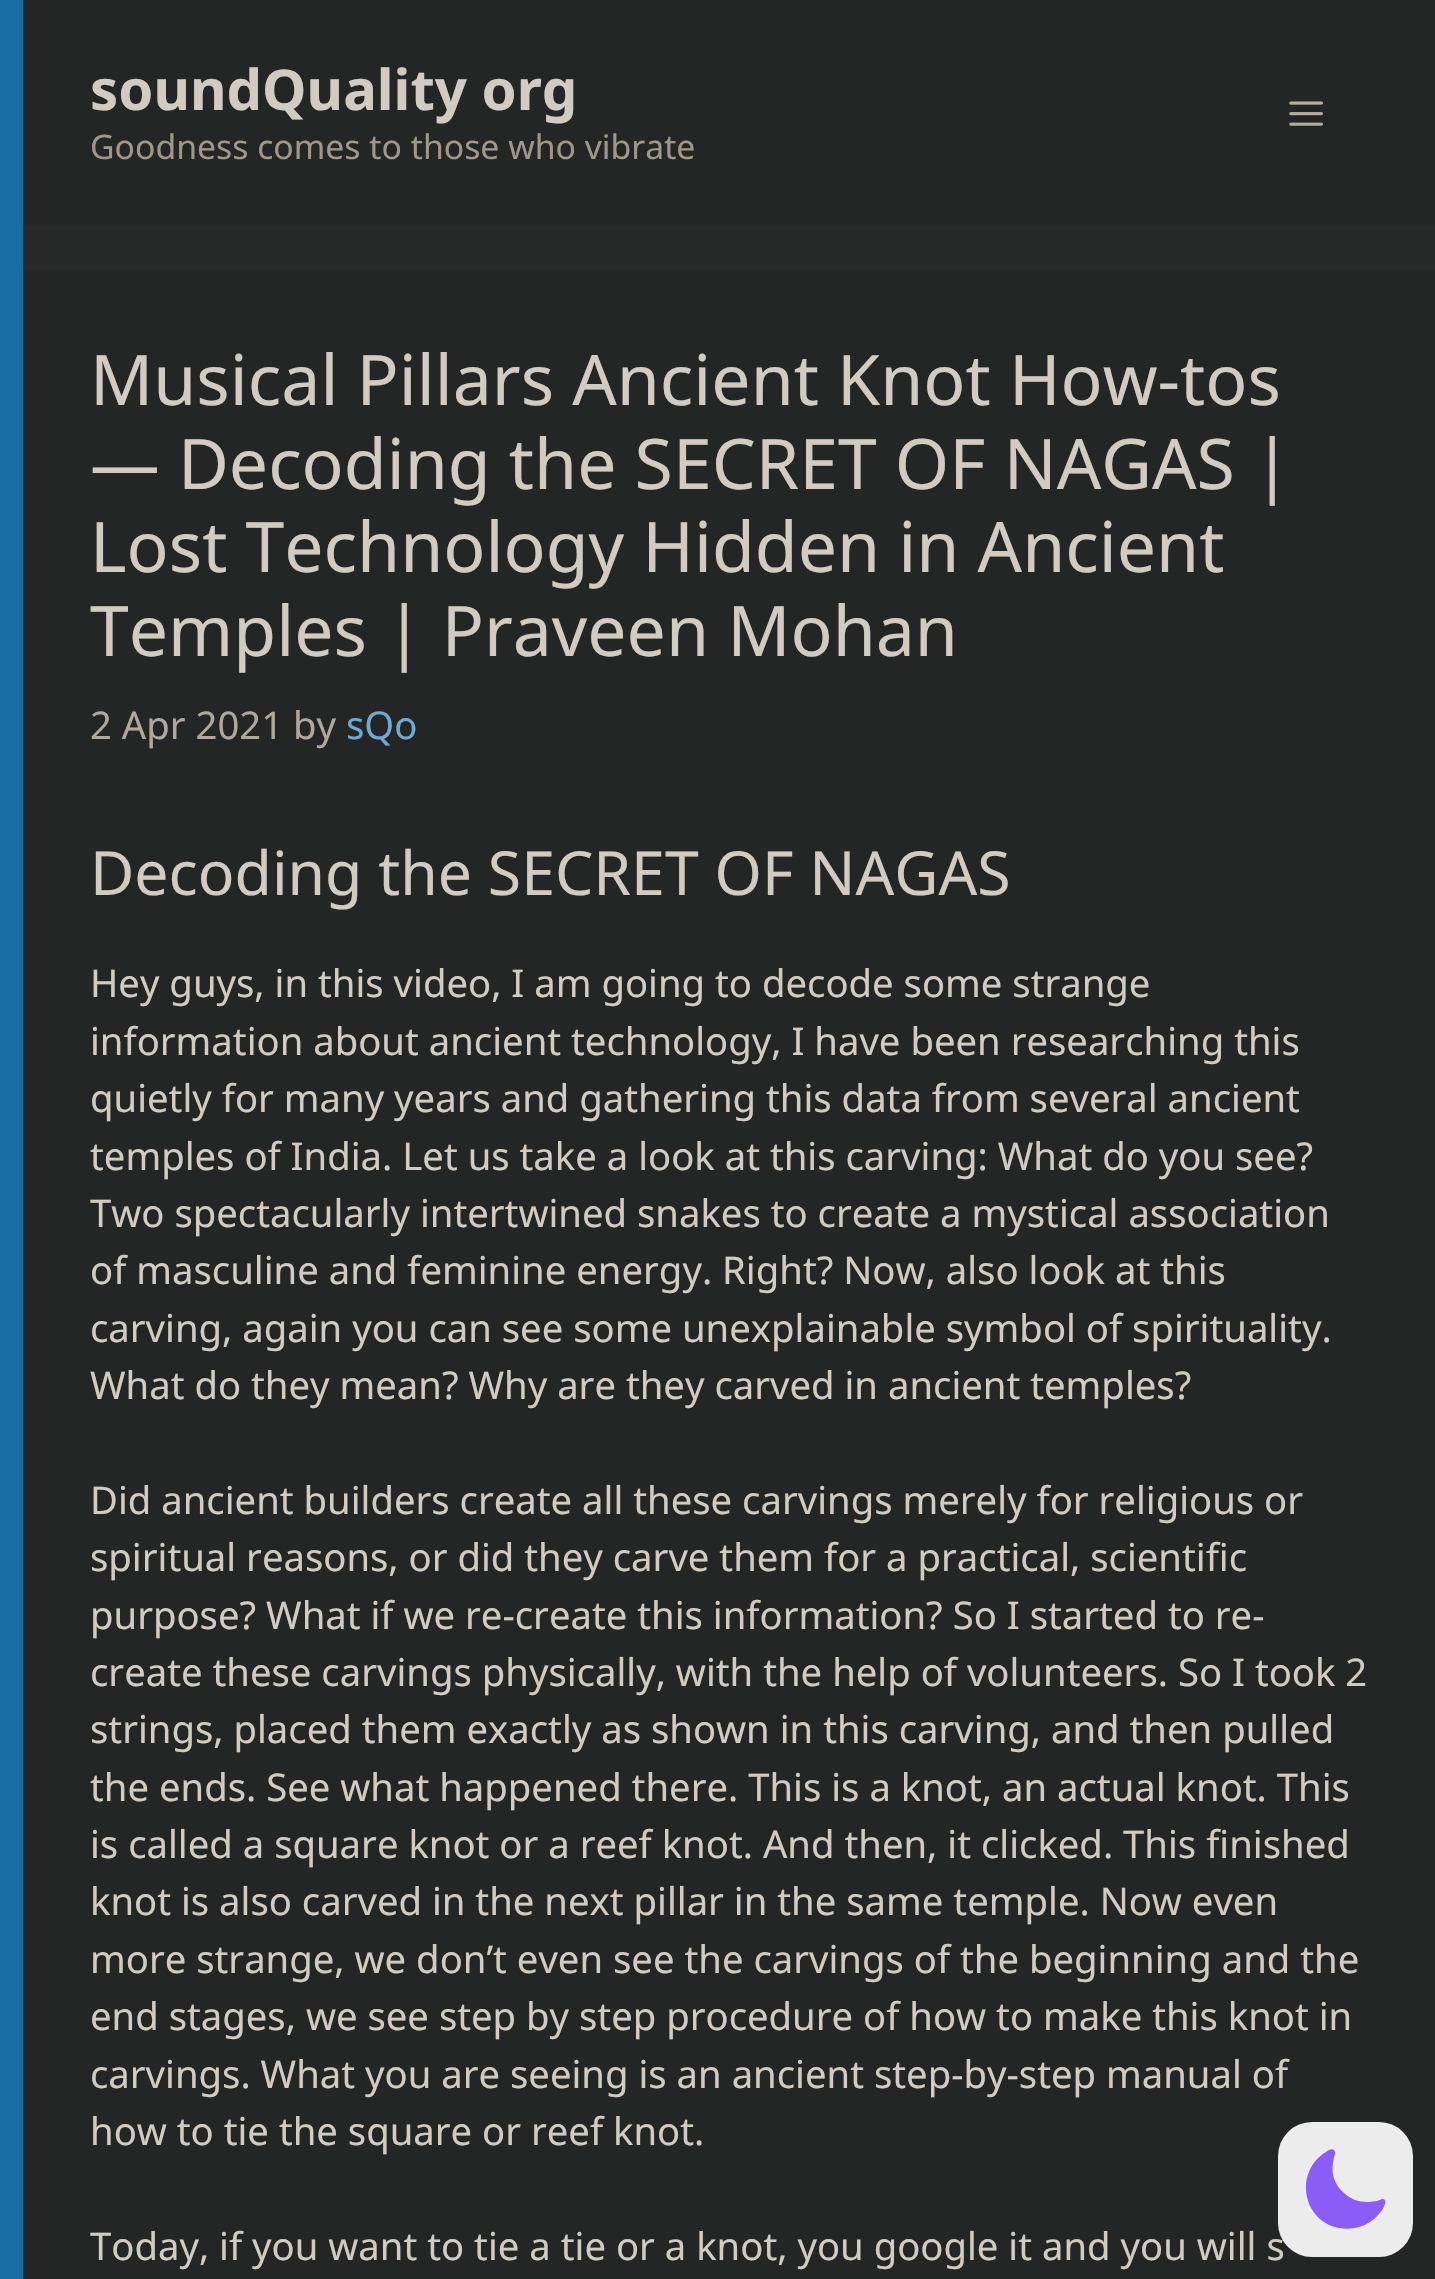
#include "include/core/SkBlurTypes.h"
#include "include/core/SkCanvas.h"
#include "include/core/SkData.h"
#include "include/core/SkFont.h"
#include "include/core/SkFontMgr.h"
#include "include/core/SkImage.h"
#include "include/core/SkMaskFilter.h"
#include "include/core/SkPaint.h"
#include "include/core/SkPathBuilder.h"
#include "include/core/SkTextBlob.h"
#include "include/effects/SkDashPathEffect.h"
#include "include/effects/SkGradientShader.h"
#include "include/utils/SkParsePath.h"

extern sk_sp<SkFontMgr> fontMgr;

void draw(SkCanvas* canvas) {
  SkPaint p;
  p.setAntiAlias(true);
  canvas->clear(SkColorSetRGB(39, 41, 40));
  p.setColor(SkColorSetRGB(24, 109, 165));
  canvas->drawRect(SkRect::MakeLTRB(0, 0, 23, 2279), p);
  p.setColor(SkColorSetRGB(36, 37, 37));
  canvas->drawRect(SkRect::MakeLTRB(23, 0, 1435, 225), p);
  canvas->drawImageRect(SkImages::DeferredFromEncodedData(SkData::MakeFromFileName("images/1.png")), SkRect::MakeLTRB(1289, 101, 1323, 126), SkSamplingOptions());
  canvas->drawRect(SkRect::MakeLTRB(23, 270, 1435, 2279), p);
  SkFont font1(fontMgr->matchFamilyStyle("Noto Sans", SkFontStyle::Bold()), 56.25f);
  font1.setSubpixel(true);
  p.setColor(SkColorSetRGB(209, 203, 193));
  canvas->drawString("soundQuality org", 90, 110, font1, p);
  SkFont font2(fontMgr->matchFamilyStyle("Noto Sans", SkFontStyle::Normal()), 33.75f);
  font2.setSubpixel(true);
  p.setColor(SkColorSetRGB(159, 151, 136));
  canvas->drawString("Goodness comes to those who vibrate", 90, 159, font2, p);
  SkFont font3(fontMgr->matchFamilyStyle("Noto Sans", SkFontStyle::Normal()), 69.75f);
  font3.setSubpixel(true);
  p.setColor(SkColorSetRGB(209, 203, 193));
  canvas->drawString("Musical Pillars Ancient Knot How-tos", 90, 405, font3, p);
  canvas->drawString("— Decoding the SECRET OF NAGAS |", 90, 489, font3, p);
  canvas->drawString("Lost Technology Hidden in Ancient", 90, 572, font3, p);
  canvas->drawString("Temples | Praveen Mohan", 90, 656, font3, p);
  SkFont font4(fontMgr->matchFamilyStyle("Noto Sans", SkFontStyle::Normal()), 38.25f);
  font4.setSubpixel(true);
  p.setColor(SkColorSetRGB(176, 168, 156));
  canvas->drawString("2 Apr 2021 by", 90, 739, font4, p);
  p.setColor(SkColorSetRGB(111, 169, 212));
  canvas->drawString("sQo", 346, 739, font4, p);
  SkFont font5(fontMgr->matchFamilyStyle("Noto Sans", SkFontStyle::Normal()), 60.75f);
  font5.setSubpixel(true);
  p.setColor(SkColorSetRGB(209, 203, 193));
  canvas->drawString("Decoding the SECRET OF NAGAS", 90, 895, font5, p);
  canvas->drawString("Hey guys, in this video, I am going to decode some strange", 90, 997, font4, p);
  canvas->drawString("information about ancient technology, I have been researching this", 90, 1055, font4, p);
  canvas->drawString("quietly for many years and gathering this data from several ancient", 90, 1112, font4, p);
  canvas->drawString("temples of India. Let us take a look at this carving: What do you see?", 90, 1170, font4, p);
  canvas->drawString("Two spectacularly intertwined snakes to create a mystical association", 90, 1227, font4, p);
  canvas->drawString("of masculine and feminine energy. Right? Now, also look at this", 90, 1284, font4, p);
  canvas->drawString("carving, again you can see some unexplainable symbol of spirituality.", 90, 1342, font4, p);
  canvas->drawString("What do they mean? Why are they carved in ancient temples?", 90, 1399, font4, p);
  canvas->drawString("Did ancient builders create all these carvings merely for religious or", 90, 1514, font4, p);
  canvas->drawString("spiritual reasons, or did they carve them for a practical, scientific", 90, 1571, font4, p);
  canvas->drawString("purpose? What if we re-create this information? So I started to re-", 90, 1629, font4, p);
  canvas->drawString("create these carvings physically, with the help of volunteers. So I took 2", 90, 1686, font4, p);
  canvas->drawString("strings, placed them exactly as shown in this carving, and then pulled", 90, 1743, font4, p);
  canvas->drawString("the ends. See what happened there. This is a knot, an actual knot. This", 90, 1801, font4, p);
  canvas->drawString("is called a square knot or a reef knot. And then, it clicked. This finished", 90, 1858, font4, p);
  canvas->drawString("knot is also carved in the next pillar in the same temple. Now even", 90, 1915, font4, p);
  canvas->drawString("more strange, we don’t even see the carvings of the beginning and the", 90, 1973, font4, p);
  canvas->drawString("end stages, we see step by step procedure of how to make this knot in", 90, 2030, font4, p);
  canvas->drawString("carvings. What you are seeing is an ancient step-by-step manual of", 90, 2088, font4, p);
  canvas->drawString("how to tie the square or reef knot.", 90, 2145, font4, p);
  canvas->drawString("Today, if you want to tie a tie or a knot, you google it and you will s", 90, 2260, font4, p);
  p.setColor(SkColorSetRGB(236, 236, 236));
  canvas->drawRoundRect(SkRect::MakeLTRB(1278, 2122, 1413, 2257), 34, 34, p);
  p.setColor(SkColorSetRGB(139, 92, 246));
  canvas->drawPath(SkPathBuilder(SkPathFillType::kEvenOdd).moveTo(1334, 2150).cubicTo(1336, 2152, 1335, 2155, 1334, 2157).lineTo(1333, 2163).cubicTo(1331, 2174, 1335, 2185, 1343, 2192).cubicTo(1350, 2199, 1358, 2202, 1368, 2202).lineTo(1377, 2201).lineTo(1382, 2199).cubicTo(1389, 2199, 1383, 2208, 1383, 2209).cubicTo(1379, 2214, 1375, 2219, 1370, 2222).cubicTo(1361, 2228, 1350, 2230, 1339, 2228).cubicTo(1302, 2221, 1294, 2171, 1326, 2152).cubicTo(1327, 2151, 1332, 2148, 1334, 2150).close().detach(), p);
}
